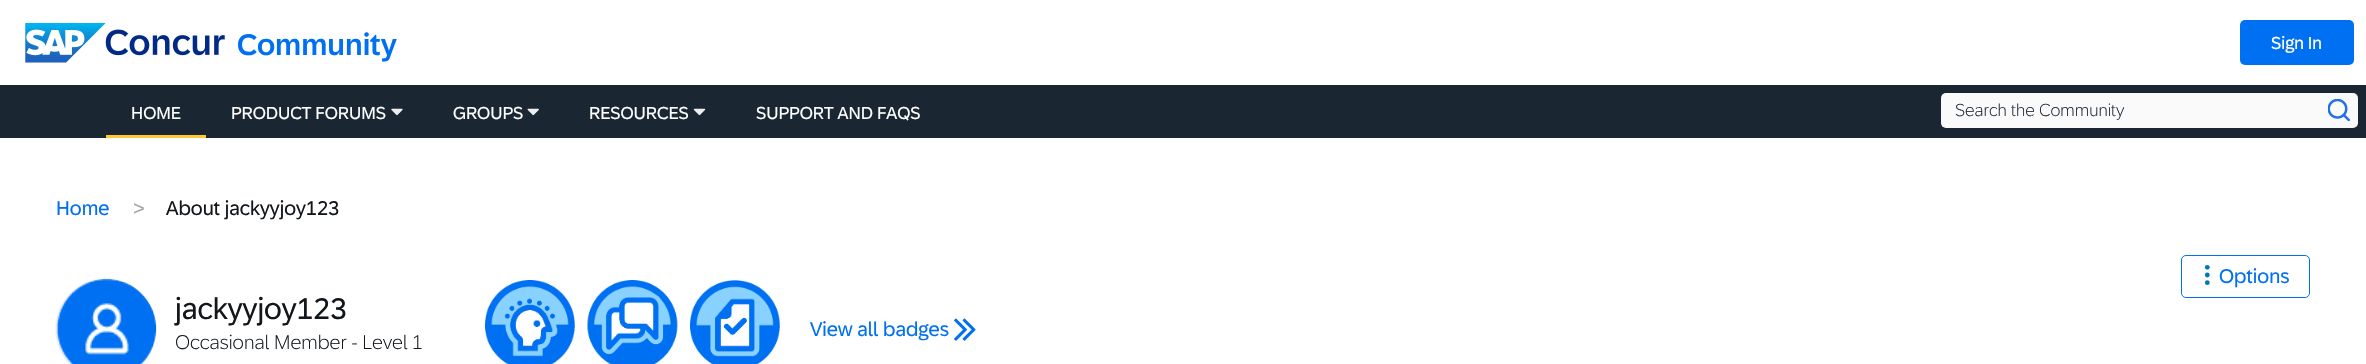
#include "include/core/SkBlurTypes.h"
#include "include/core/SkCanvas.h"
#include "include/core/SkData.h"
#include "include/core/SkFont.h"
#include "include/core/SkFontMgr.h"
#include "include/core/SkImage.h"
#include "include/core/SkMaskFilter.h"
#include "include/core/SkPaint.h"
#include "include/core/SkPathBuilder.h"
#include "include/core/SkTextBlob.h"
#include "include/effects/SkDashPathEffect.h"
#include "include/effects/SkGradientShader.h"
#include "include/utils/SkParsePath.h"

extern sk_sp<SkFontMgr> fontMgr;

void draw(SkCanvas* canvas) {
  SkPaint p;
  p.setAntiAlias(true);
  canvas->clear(SK_ColorWHITE);
  canvas->drawImageRect(SkImages::DeferredFromEncodedData(SkData::MakeFromFileName("images/1.png")), SkRect::MakeLTRB(25, 23, 225, 63), SkSamplingOptions());
  p.setColor(SkColorSetRGB(0, 112, 242));
  canvas->drawRoundRect(SkRect::MakeLTRB(2240, 20, 2354, 65), 5, 5, p);
  p.setColor(SkColorSetRGB(26, 39, 51));
  canvas->drawRect(SkRect::MakeLTRB(0, 85, 2366, 138), p);
  p.setColor(SkColorSetRGB(255, 201, 51));
  canvas->drawRect(SkRect::MakeLTRB(106, 135, 206, 138), p);
  canvas->drawImageRect(SkImages::DeferredFromEncodedData(SkData::MakeFromFileName("images/2.png")), SkRect::MakeLTRB(391, 108, 403, 116), SkSamplingOptions());
  canvas->drawImageRect(SkImages::DeferredFromEncodedData(SkData::MakeFromFileName("images/3.png")), SkRect::MakeLTRB(527, 108, 539, 116), SkSamplingOptions());
  canvas->drawImageRect(SkImages::DeferredFromEncodedData(SkData::MakeFromFileName("images/4.png")), SkRect::MakeLTRB(693, 108, 706, 116), SkSamplingOptions());
  p.setColor(SkColorSetRGB(250, 250, 250));
  canvas->drawRoundRect(SkRect::MakeLTRB(1941, 93, 2358, 128), 5, 5, p);
  canvas->drawImageRect(SkImages::DeferredFromEncodedData(SkData::MakeFromFileName("images/5.png")), SkRect::MakeLTRB(2328, 99, 2350, 121), SkSamplingOptions());
  p.setStyle(SkPaint::kStroke_Style);
  p.setStrokeWidth(1);
  p.setColor(SkColorSetRGB(0, 112, 242));
  canvas->drawRoundRect(SkRect::MakeLTRB(2181.5f, 255.5f, 2309.5f, 297.5f), 4.5f, 4.5f, p);
  p.setStyle(SkPaint::kFill_Style);
  p.setColor(SkColorSetRGB(0, 120, 182));
  canvas->drawCircle(2207.3f, 267.3f, 2.4f, p);
  canvas->drawCircle(2207.3f, 275, 2.4f, p);
  canvas->drawCircle(2207.3f, 282.7f, 2.4f, p);
  canvas->save();
  canvas->clipPath(SkPathBuilder(SkPathFillType::kEvenOdd).moveTo(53, 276).lineTo(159, 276).lineTo(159, 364).lineTo(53, 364).close().moveTo(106, 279).cubicTo(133.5f, 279, 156, 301.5f, 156, 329).cubicTo(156, 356.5f, 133.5f, 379, 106, 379).cubicTo(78.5f, 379, 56, 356.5f, 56, 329).cubicTo(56, 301.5f, 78.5f, 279, 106, 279).close().detach(), true);
  p.setColor(SkColorSetRGB(169, 180, 190));
  p.setMaskFilter(SkMaskFilter::MakeBlur(kNormal_SkBlurStyle, 0.5f));
  canvas->drawRoundRect(SkRect::MakeLTRB(56, 279, 156, 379), 50, 50, p);
  p.setMaskFilter(nullptr);
  canvas->restore();
  canvas->drawImageRect(SkImages::DeferredFromEncodedData(SkData::MakeFromFileName("images/6.png")), SkRect::MakeLTRB(56, 278, 157, 364), SkSamplingOptions());
  canvas->drawImageRect(SkImages::DeferredFromEncodedData(SkData::MakeFromFileName("images/7.png")), SkRect::MakeLTRB(485, 280, 575, 364), SkSamplingOptions());
  canvas->drawImageRect(SkImages::DeferredFromEncodedData(SkData::MakeFromFileName("images/8.png")), SkRect::MakeLTRB(587, 280, 678, 364), SkSamplingOptions());
  canvas->drawImageRect(SkImages::DeferredFromEncodedData(SkData::MakeFromFileName("images/9.png")), SkRect::MakeLTRB(690, 280, 780, 364), SkSamplingOptions());
  canvas->drawImageRect(SkImages::DeferredFromEncodedData(SkData::MakeFromFileName("images/10.png")), SkRect::MakeLTRB(954, 318, 976, 341), SkSamplingOptions());
  SkFont font1(fontMgr->matchFamilyStyle("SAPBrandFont", SkFontStyle(500, SkFontStyle::kNormal_Width, SkFontStyle::kUpright_Slant)), 30);
  font1.setSubpixel(true);
  p.setColor(SkColorSetRGB(0, 112, 242));
  canvas->drawString("Community", 237, 55, font1, p);
  SkFont font2(fontMgr->matchFamilyStyle("SAPBrandFont", SkFontStyle::Normal()), 17.5f);
  font2.setSubpixel(true);
  p.setColor(SK_ColorWHITE);
  canvas->drawString("Sign In", 2271, 49, font2, p);
  canvas->drawString("HOME", 131, 119, font2, p);
  canvas->drawString("PRODUCT FORUMS", 231, 119, font2, p);
  canvas->drawString("GROUPS", 453, 119, font2, p);
  canvas->drawString("RESOURCES", 589, 119, font2, p);
  canvas->drawString("SUPPORT AND FAQS", 756, 119, font2, p);
  SkFont font3(fontMgr->matchFamilyStyle("SAPBrandFont", SkFontStyle(300, SkFontStyle::kNormal_Width, SkFontStyle::kUpright_Slant)), 17.5f);
  font3.setSubpixel(true);
  p.setColor(SkColorSetRGB(26, 39, 51));
  canvas->drawString("Search the Community", 1955, 116, font3, p);
  SkFont font4(fontMgr->matchFamilyStyle("SAPBrandFont", SkFontStyle::Normal()), 20);
  font4.setSubpixel(true);
  p.setColor(SkColorSetRGB(0, 112, 242));
  canvas->drawString("Home", 56, 215, font4, p);
  p.setColor(SkColorSetRGB(161, 161, 161));
  canvas->drawString(">", 133, 215, font4, p);
  p.setColor(SkColorSetRGB(18, 23, 28));
  canvas->drawString("About jackyyjoy123", 166, 215, font4, p);
  p.setColor(SkColorSetRGB(0, 112, 242));
  canvas->drawString("Options", 2219, 283, font4, p);
  SkFont font5(fontMgr->matchFamilyStyle("SAPBrandFont", SkFontStyle::Normal()), 30);
  font5.setSubpixel(true);
  p.setColor(SkColorSetRGB(18, 23, 28));
  canvas->drawString("jackyyjoy123", 175, 319, font5, p);
  SkFont font6(fontMgr->matchFamilyStyle("SAPBrandFont", SkFontStyle(300, SkFontStyle::kNormal_Width, SkFontStyle::kUpright_Slant)), 20);
  font6.setSubpixel(true);
  canvas->drawString("Occasional Member - Level 1", 175, 349, font6, p);
  p.setColor(SkColorSetRGB(0, 112, 242));
  canvas->drawString("View all badges", 810, 336, font4, p);
}
